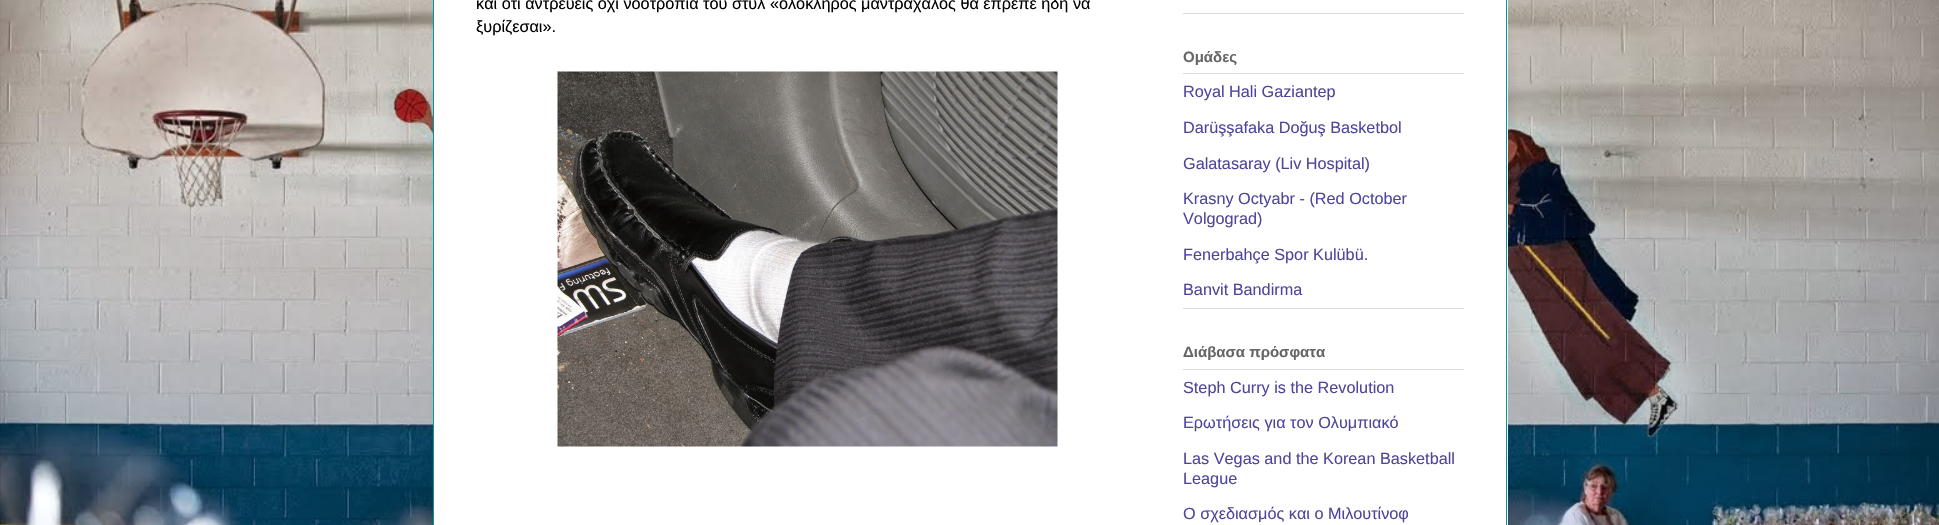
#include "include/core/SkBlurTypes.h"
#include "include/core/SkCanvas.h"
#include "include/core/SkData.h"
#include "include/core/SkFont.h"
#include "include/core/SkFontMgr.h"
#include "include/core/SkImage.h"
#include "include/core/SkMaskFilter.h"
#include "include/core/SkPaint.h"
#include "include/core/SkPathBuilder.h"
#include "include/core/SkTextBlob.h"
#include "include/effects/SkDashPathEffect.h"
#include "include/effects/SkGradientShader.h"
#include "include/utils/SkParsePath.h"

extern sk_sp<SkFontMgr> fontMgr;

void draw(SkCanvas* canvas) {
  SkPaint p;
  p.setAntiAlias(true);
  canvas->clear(SK_ColorWHITE);
  canvas->drawImageRect(SkImages::DeferredFromEncodedData(SkData::MakeFromFileName("images/1.png")), SkRect::MakeLTRB(0, 0, 1939, 525), SkSamplingOptions());
  p.setColor(SK_ColorWHITE);
  canvas->drawRect(SkRect::MakeLTRB(434, 0, 1508, 525), p);
  p.setColor(SkColorSetRGB(0, 148, 166));
  canvas->drawRect(SkRect::MakeLTRB(1506, 0, 1507, 525), p);
  canvas->drawRect(SkRect::MakeLTRB(433, 0, 434, 525), p);
  canvas->drawImageRect(SkImages::DeferredFromEncodedData(SkData::MakeFromFileName("images/2.png")), SkRect::MakeLTRB(557, 71, 1058, 447), SkSamplingOptions());
  p.setColor(SkColorSetRGB(219, 219, 219));
  canvas->drawRect(SkRect::MakeLTRB(1183, 13, 1464, 14), p);
  canvas->drawRect(SkRect::MakeLTRB(1183, 308, 1464, 309), p);
  canvas->drawRect(SkRect::MakeLTRB(1183, 73, 1464, 74), p);
  canvas->drawRect(SkRect::MakeLTRB(1183, 369, 1464, 370), p);
  SkFont font1(fontMgr->matchFamilyStyle("Liberation Sans", SkFontStyle::Normal()), 16.25f);
  font1.setSubpixel(true);
  p.setColor(SK_ColorBLACK);
  canvas->drawString("και ότι αντρεύεις όχι νοοτροπία του στυλ «ολόκληρος μαντράχαλος θα έπρεπε ήδη να", 476, 9, font1, p);
  canvas->drawString("ξυρίζεσαι».", 476, 32, font1, p);
  SkFont font2(fontMgr->matchFamilyStyle("Liberation Sans", SkFontStyle::Bold()), 15);
  font2.setSubpixel(true);
  p.setColor(SkColorSetRGB(102, 102, 102));
  canvas->drawString("Ομάδες", 1183, 62, font2, p);
  p.setColor(SkColorSetRGB(77, 70, 156));
  canvas->drawString("Royal Hali Gaziantep", 1183, 97, font1, p);
  canvas->drawString("Darüşşafaka Doğuş Basketbol", 1183, 133, font1, p);
  canvas->drawString("Galatasaray (Liv Hospital)", 1183, 169, font1, p);
  canvas->drawString("Krasny Octyabr - (Red October", 1183, 204, font1, p);
  canvas->drawString("Volgograd)", 1183, 224, font1, p);
  canvas->drawString("Fenerbahçe Spor Kulübü.", 1183, 260, font1, p);
  canvas->drawString("Banvit Bandirma", 1183, 295, font1, p);
  p.setColor(SkColorSetRGB(102, 102, 102));
  canvas->drawString("Διάβασα πρόσφατα", 1183, 357, font2, p);
  p.setColor(SkColorSetRGB(77, 70, 156));
  canvas->drawString("Steph Curry is the Revolution", 1183, 393, font1, p);
  canvas->drawString("Ερωτήσεις για τον Ολυμπιακό", 1183, 428, font1, p);
  canvas->drawString("Las Vegas and the Korean Basketball", 1183, 464, font1, p);
  canvas->drawString("League", 1183, 484, font1, p);
  canvas->drawString("Ο σχεδιασμός και ο Μιλουτίνοφ", 1183, 519, font1, p);
}
